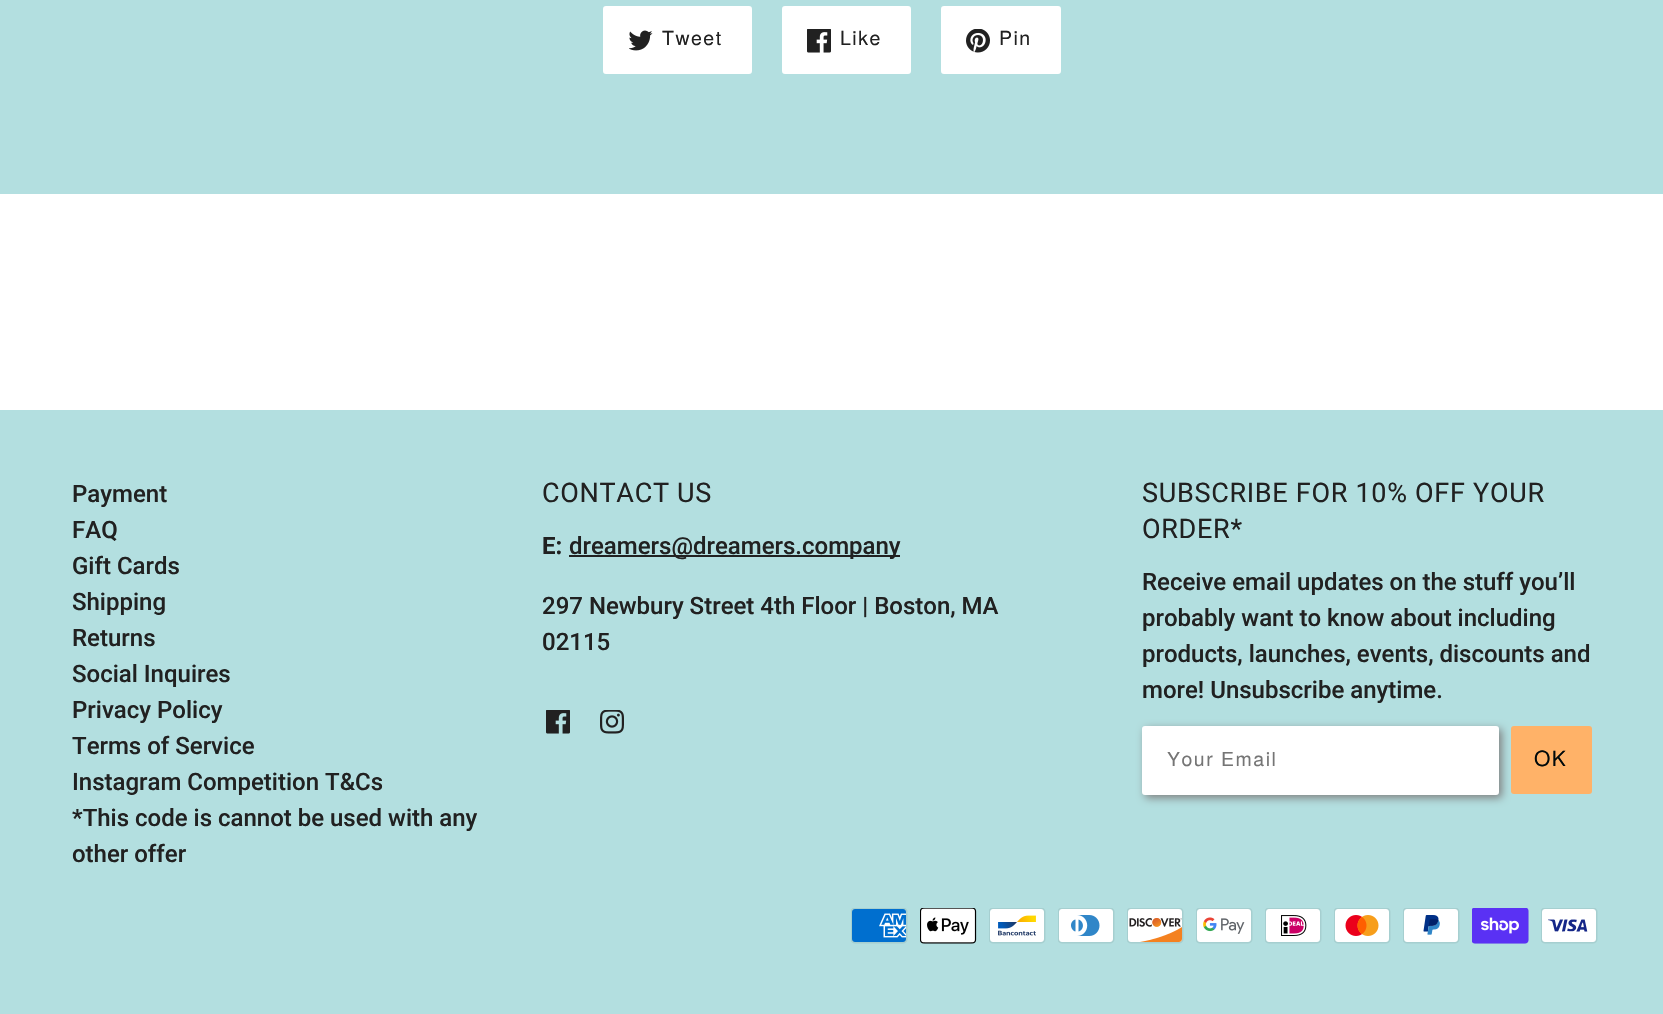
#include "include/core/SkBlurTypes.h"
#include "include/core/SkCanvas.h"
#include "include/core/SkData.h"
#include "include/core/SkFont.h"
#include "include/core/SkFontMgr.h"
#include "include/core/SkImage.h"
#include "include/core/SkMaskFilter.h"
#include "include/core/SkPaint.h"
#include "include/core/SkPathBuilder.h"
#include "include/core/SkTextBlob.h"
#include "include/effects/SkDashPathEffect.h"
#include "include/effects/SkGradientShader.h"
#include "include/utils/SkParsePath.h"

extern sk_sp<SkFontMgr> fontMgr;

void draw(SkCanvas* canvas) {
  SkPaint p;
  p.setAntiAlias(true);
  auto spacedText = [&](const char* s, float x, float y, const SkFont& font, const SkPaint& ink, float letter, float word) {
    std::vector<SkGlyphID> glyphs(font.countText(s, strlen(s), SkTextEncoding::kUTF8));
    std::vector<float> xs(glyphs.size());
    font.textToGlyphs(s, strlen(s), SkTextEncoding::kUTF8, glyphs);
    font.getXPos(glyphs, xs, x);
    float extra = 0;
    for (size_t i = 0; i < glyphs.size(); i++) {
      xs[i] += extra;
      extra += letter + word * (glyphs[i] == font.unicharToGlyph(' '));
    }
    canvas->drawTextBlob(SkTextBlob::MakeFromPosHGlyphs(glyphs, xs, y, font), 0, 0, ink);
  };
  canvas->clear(SK_ColorWHITE);
  p.setColor(SkColorSetRGB(179, 223, 224));
  canvas->drawRect(SkRect::MakeLTRB(0, 0, 1663, 194), p);
  p.setColor(SK_ColorWHITE);
  canvas->drawRoundRect(SkRect::MakeLTRB(604, 7, 751, 73), 2, 2, p);
  p.setStyle(SkPaint::kStroke_Style);
  p.setStrokeWidth(2);
  canvas->drawRoundRect(SkRect::MakeLTRB(604, 7, 751, 73), 2, 2, p);
  canvas->drawImageRect(SkImages::DeferredFromEncodedData(SkData::MakeFromFileName("images/1.png")), SkRect::MakeLTRB(629, 30, 653, 51), SkSamplingOptions());
  p.setStyle(SkPaint::kFill_Style);
  canvas->drawRoundRect(SkRect::MakeLTRB(783, 7, 910, 73), 2, 2, p);
  p.setStyle(SkPaint::kStroke_Style);
  canvas->drawRoundRect(SkRect::MakeLTRB(783, 7, 910, 73), 2, 2, p);
  canvas->drawImageRect(SkImages::DeferredFromEncodedData(SkData::MakeFromFileName("images/2.png")), SkRect::MakeLTRB(807, 29, 831, 53), SkSamplingOptions());
  p.setStyle(SkPaint::kFill_Style);
  canvas->drawRoundRect(SkRect::MakeLTRB(942, 7, 1060, 73), 2, 2, p);
  p.setStyle(SkPaint::kStroke_Style);
  canvas->drawRoundRect(SkRect::MakeLTRB(942, 7, 1060, 73), 2, 2, p);
  canvas->drawImageRect(SkImages::DeferredFromEncodedData(SkData::MakeFromFileName("images/3.png")), SkRect::MakeLTRB(966, 29, 990, 53), SkSamplingOptions());
  p.setStyle(SkPaint::kFill_Style);
  p.setColor(SkColorSetRGB(179, 223, 224));
  canvas->drawRect(SkRect::MakeLTRB(0, 410, 1663, 1014), p);
  p.setColor(SkColorSetRGB(33, 33, 33));
  canvas->drawRect(SkRect::MakeLTRB(569, 555, 900, 557), p);
  canvas->drawImageRect(SkImages::DeferredFromEncodedData(SkData::MakeFromFileName("images/4.png")), SkRect::MakeLTRB(546, 710, 570, 734), SkSamplingOptions());
  canvas->drawImageRect(SkImages::DeferredFromEncodedData(SkData::MakeFromFileName("images/5.png")), SkRect::MakeLTRB(600, 710, 624, 734), SkSamplingOptions());
  p.setColor(SkColorSetRGB(128, 128, 128));
  p.setMaskFilter(SkMaskFilter::MakeBlur(kNormal_SkBlurStyle, 4));
  canvas->drawRoundRect(SkRect::MakeLTRB(1145, 729, 1502, 798), 3, 3, p);
  p.setMaskFilter(nullptr);
  p.setColor(SK_ColorWHITE);
  canvas->drawRoundRect(SkRect::MakeLTRB(1143, 727, 1498, 794), 2, 2, p);
  p.setStyle(SkPaint::kStroke_Style);
  canvas->drawRoundRect(SkRect::MakeLTRB(1143, 727, 1498, 794), 2, 2, p);
  p.setStyle(SkPaint::kFill_Style);
  p.setColor(SkColorSetRGB(255, 178, 104));
  canvas->drawRoundRect(SkRect::MakeLTRB(1511, 726, 1592, 794), 3, 3, p);
  canvas->drawImageRect(SkImages::DeferredFromEncodedData(SkData::MakeFromFileName("images/6.png")), SkRect::MakeLTRB(851, 908, 908, 944), SkSamplingOptions());
  canvas->drawImageRect(SkImages::DeferredFromEncodedData(SkData::MakeFromFileName("images/7.png")), SkRect::MakeLTRB(920, 908, 977, 944), SkSamplingOptions());
  canvas->drawImageRect(SkImages::DeferredFromEncodedData(SkData::MakeFromFileName("images/8.png")), SkRect::MakeLTRB(989, 908, 1046, 944), SkSamplingOptions());
  canvas->drawImageRect(SkImages::DeferredFromEncodedData(SkData::MakeFromFileName("images/9.png")), SkRect::MakeLTRB(1058, 908, 1115, 944), SkSamplingOptions());
  canvas->drawImageRect(SkImages::DeferredFromEncodedData(SkData::MakeFromFileName("images/10.png")), SkRect::MakeLTRB(1127, 908, 1184, 944), SkSamplingOptions());
  canvas->drawImageRect(SkImages::DeferredFromEncodedData(SkData::MakeFromFileName("images/11.png")), SkRect::MakeLTRB(1196, 908, 1253, 944), SkSamplingOptions());
  canvas->drawImageRect(SkImages::DeferredFromEncodedData(SkData::MakeFromFileName("images/12.png")), SkRect::MakeLTRB(1265, 908, 1322, 944), SkSamplingOptions());
  canvas->drawImageRect(SkImages::DeferredFromEncodedData(SkData::MakeFromFileName("images/13.png")), SkRect::MakeLTRB(1334, 908, 1391, 944), SkSamplingOptions());
  canvas->drawImageRect(SkImages::DeferredFromEncodedData(SkData::MakeFromFileName("images/14.png")), SkRect::MakeLTRB(1403, 908, 1460, 944), SkSamplingOptions());
  canvas->drawImageRect(SkImages::DeferredFromEncodedData(SkData::MakeFromFileName("images/15.png")), SkRect::MakeLTRB(1472, 908, 1529, 944), SkSamplingOptions());
  canvas->drawImageRect(SkImages::DeferredFromEncodedData(SkData::MakeFromFileName("images/16.png")), SkRect::MakeLTRB(1541, 908, 1598, 944), SkSamplingOptions());
  SkFont font1(fontMgr->matchFamilyStyle("TeX Gyre Heros", SkFontStyle::Normal()), 19.5f);
  font1.setSubpixel(true);
  p.setColor(SkColorSetRGB(33, 33, 33));
  spacedText("Tweet", 662, 45, font1, p, 1.5f, 0);
  spacedText("Like", 840, 45, font1, p, 1.5f, 0);
  spacedText("Pin", 999, 45, font1, p, 1.5f, 0);
  SkFont font2(fontMgr->matchFamilyStyle("Roboto", SkFontStyle(500, SkFontStyle::kNormal_Width, SkFontStyle::kUpright_Slant)), 24);
  font2.setSubpixel(true);
  canvas->drawString("Payment", 72, 502, font2, p);
  canvas->drawString("FAQ", 72, 538, font2, p);
  canvas->drawString("Gift Cards", 72, 574, font2, p);
  canvas->drawString("Shipping", 72, 610, font2, p);
  canvas->drawString("Returns", 72, 646, font2, p);
  canvas->drawString("Social Inquires", 72, 682, font2, p);
  canvas->drawString("Privacy Policy", 72, 718, font2, p);
  canvas->drawString("Terms of Service", 72, 754, font2, p);
  canvas->drawString("Instagram Competition T&Cs", 72, 790, font2, p);
  canvas->drawString("*This code is cannot be used with any", 72, 826, font2, p);
  canvas->drawString("other offer", 72, 862, font2, p);
  SkFont font3(fontMgr->matchFamilyStyle("Roboto", SkFontStyle::Normal()), 27);
  font3.setSubpixel(true);
  spacedText("CONTACT US", 542, 502, font3, p, 0.7f, 0);
  SkFont font4(fontMgr->matchFamilyStyle("Roboto", SkFontStyle::Bold()), 24);
  font4.setSubpixel(true);
  canvas->drawString("E:", 542, 554, font4, p);
  canvas->drawString("dreamers@dreamers.company", 569, 554, font2, p);
  canvas->drawString("297 Newbury Street 4th Floor | Boston, MA", 542, 614, font2, p);
  canvas->drawString("02115", 542, 650, font2, p);
  spacedText("SUBSCRIBE FOR 10% OFF YOUR", 1142, 502, font3, p, 0.7f, 0);
  spacedText("ORDER*", 1142, 538, font3, p, 0.7f, 0);
  canvas->drawString("Receive email updates on the stuff you’ll", 1142, 590, font2, p);
  canvas->drawString("probably want to know about including", 1142, 626, font2, p);
  canvas->drawString("products, launches, events, discounts and", 1142, 662, font2, p);
  canvas->drawString("more! Unsubscribe anytime.", 1142, 698, font2, p);
  canvas->save();
  canvas->clipRect(SkRect::MakeLTRB(1167, 752, 1473, 771));
  p.setColor(SkColorSetRGB(117, 117, 117));
  spacedText("Your Email", 1167, 766, font1, p, 1.5f, 0);
  canvas->restore();
  SkFont font5(fontMgr->matchFamilyStyle("TeX Gyre Heros", SkFontStyle::Normal()), 21);
  font5.setSubpixel(true);
  p.setColor(SkColorSetRGB(0, 9, 10));
  spacedText("OK", 1534, 766, font5, p, 1.5f, 0);
}
